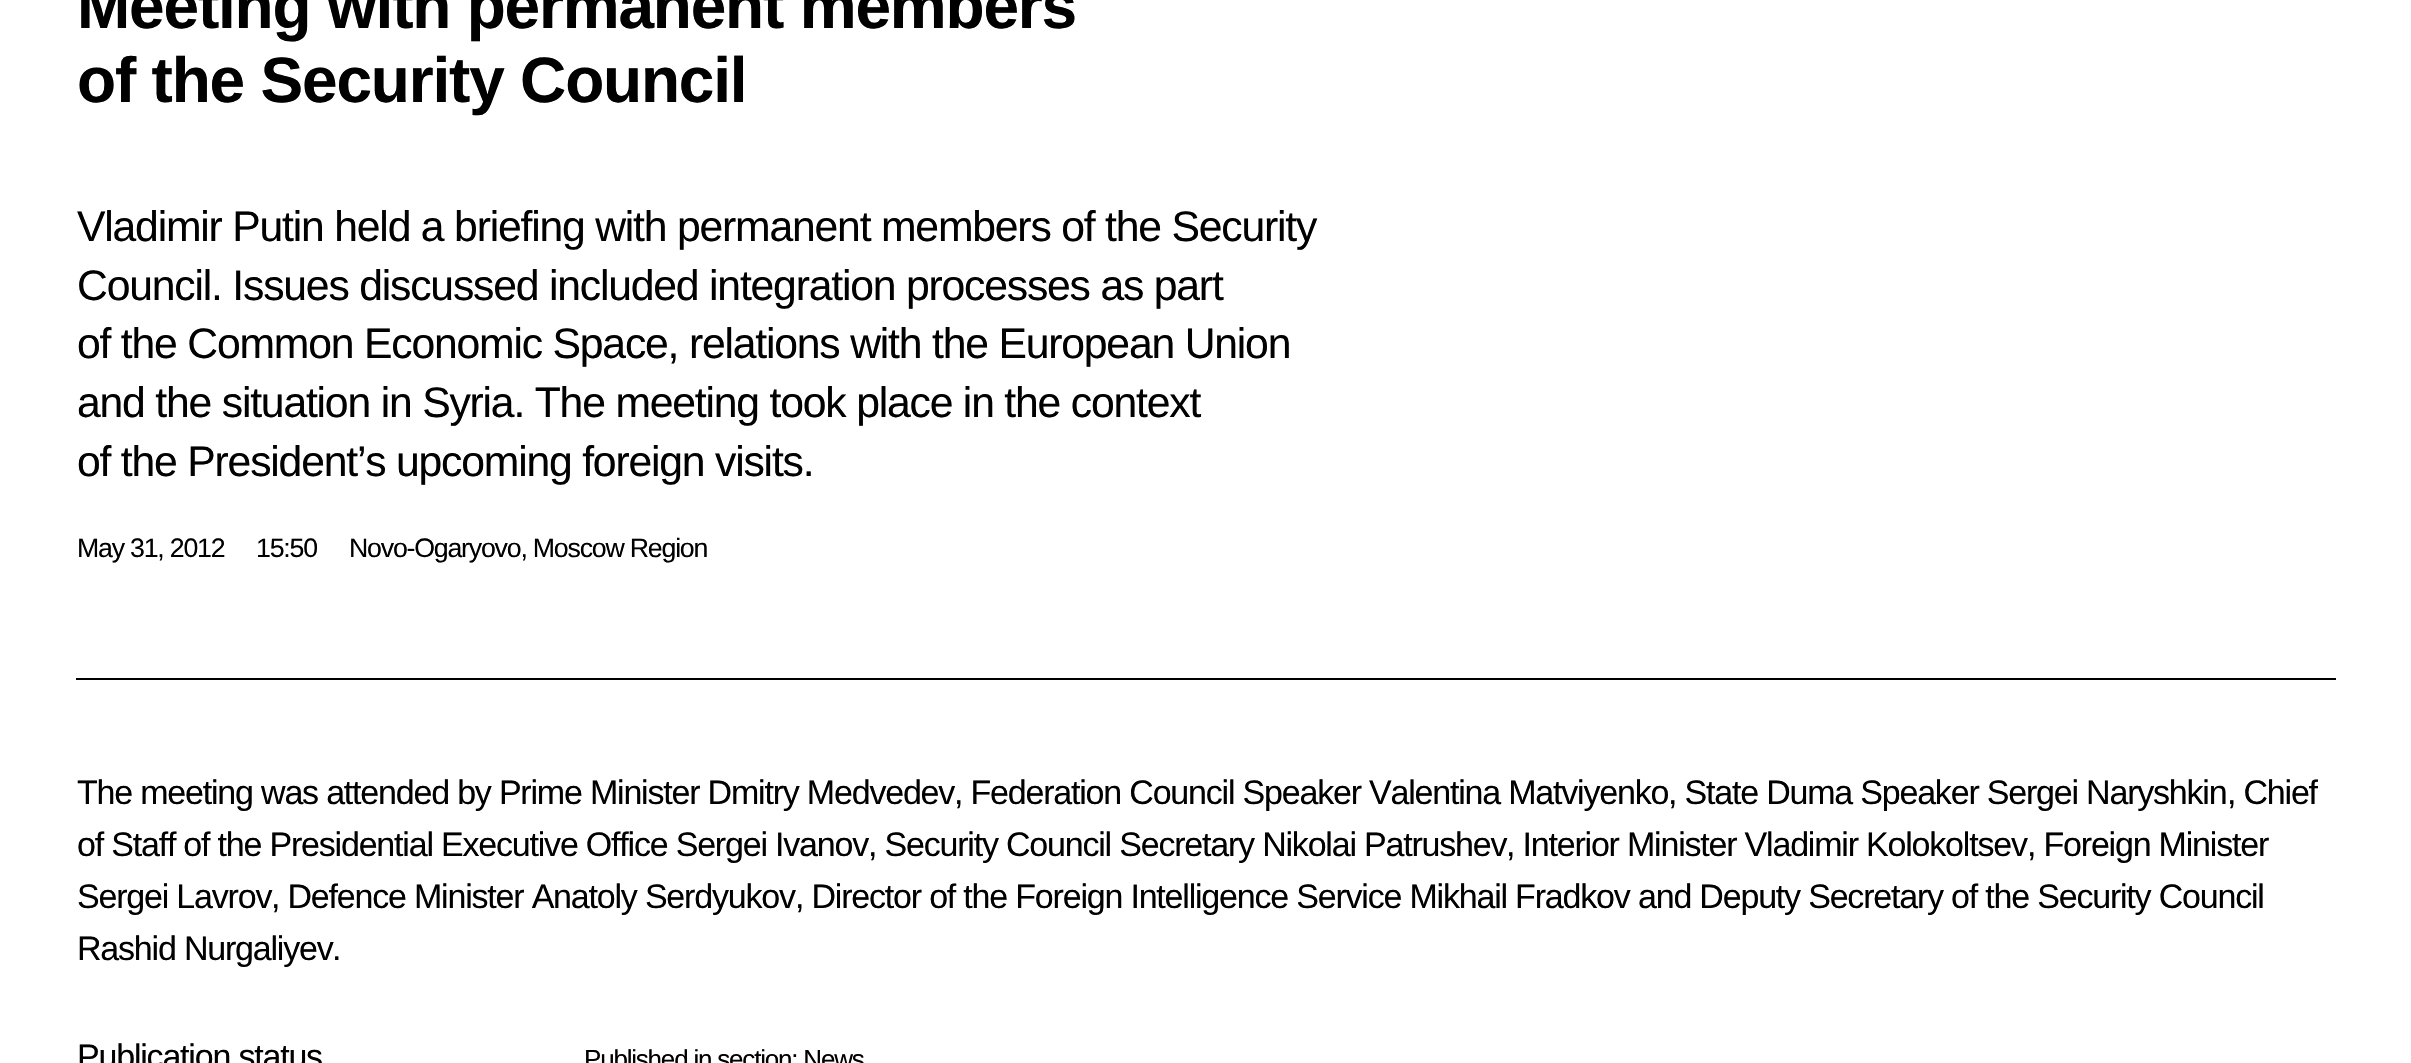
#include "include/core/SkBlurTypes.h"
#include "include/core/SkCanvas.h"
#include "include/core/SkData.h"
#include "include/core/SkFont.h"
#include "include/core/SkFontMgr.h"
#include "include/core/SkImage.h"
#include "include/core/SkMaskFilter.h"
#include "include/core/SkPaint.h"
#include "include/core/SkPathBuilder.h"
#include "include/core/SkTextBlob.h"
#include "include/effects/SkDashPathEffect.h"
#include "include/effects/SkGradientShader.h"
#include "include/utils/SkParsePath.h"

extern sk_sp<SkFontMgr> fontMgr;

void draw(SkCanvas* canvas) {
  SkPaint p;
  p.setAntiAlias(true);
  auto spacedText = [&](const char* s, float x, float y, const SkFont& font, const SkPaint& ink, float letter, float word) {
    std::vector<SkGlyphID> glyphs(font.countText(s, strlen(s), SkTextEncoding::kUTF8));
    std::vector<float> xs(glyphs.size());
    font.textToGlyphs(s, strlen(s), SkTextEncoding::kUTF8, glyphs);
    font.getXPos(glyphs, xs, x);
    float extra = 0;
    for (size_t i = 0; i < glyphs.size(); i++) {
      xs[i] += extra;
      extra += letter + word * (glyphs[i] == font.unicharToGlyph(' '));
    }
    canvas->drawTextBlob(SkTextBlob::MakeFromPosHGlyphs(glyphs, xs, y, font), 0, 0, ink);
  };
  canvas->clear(SK_ColorWHITE);
  p.setColor(SK_ColorBLACK);
  canvas->drawRect(SkRect::MakeLTRB(76, 678, 2336, 680), p);
  SkFont font1(fontMgr->matchFamilyStyle("Liberation Sans", SkFontStyle::Bold()), 64);
  font1.setSubpixel(true);
  spacedText("Meeting with permanent members", 77, 28, font1, p, -1.2f, 0);
  spacedText("of the Security Council", 77, 102, font1, p, -1.2f, 0);
  SkFont font2(fontMgr->matchFamilyStyle("Liberation Sans", SkFontStyle::Normal()), 42.7f);
  font2.setSubpixel(true);
  spacedText("Vladimir Putin held a briefing with permanent members of the Security", 77, 241, font2, p, -1.2f, 0);
  spacedText("Council. Issues discussed included integration processes as part", 77, 300, font2, p, -1.2f, 0);
  spacedText("of the Common Economic Space, relations with the European Union", 77, 358, font2, p, -1.2f, 0);
  spacedText("and the situation in Syria. The meeting took place in the context", 77, 417, font2, p, -1.2f, 0);
  spacedText("of the President’s upcoming foreign visits.", 77, 476, font2, p, -1.2f, 0);
  SkFont font3(fontMgr->matchFamilyStyle("Liberation Sans", SkFontStyle::Normal()), 26.7f);
  font3.setSubpixel(true);
  spacedText("May 31, 2012", 77, 557, font3, p, -1.2f, 0);
  spacedText("15:50", 256, 557, font3, p, -1.2f, 0);
  spacedText("Novo-Ogaryovo, Moscow Region", 349, 557, font3, p, -1.2f, 0);
  SkFont font4(fontMgr->matchFamilyStyle("Liberation Sans", SkFontStyle::Normal()), 34);
  font4.setSubpixel(true);
  spacedText("The meeting was attended by Prime Minister Dmitry Medvedev", 77, 804, font4, p, -1.2f, 0);
  spacedText(", Federation Council Speaker Valentina Matviyenko", 954, 804, font4, p, -1.2f, 0);
  spacedText(", State Duma Speaker Sergei Naryshkin", 1668, 804, font4, p, -1.2f, 0);
  spacedText(", Chief", 2227, 804, font4, p, -1.2f, 0);
  spacedText("of Staff of the Presidential Executive Office Sergei Ivanov", 77, 856, font4, p, -1.2f, 0);
  spacedText(", Security Council Secretary Nikolai Patrushev", 868, 856, font4, p, -1.2f, 0);
  spacedText(", Interior Minister Vladimir Kolokoltsev", 1506, 856, font4, p, -1.2f, 0);
  spacedText(", Foreign Minister", 2027, 856, font4, p, -1.2f, 0);
  spacedText("Sergei Lavrov", 77, 908, font4, p, -1.2f, 0);
  spacedText(", Defence Minister Anatoly Serdyukov", 271, 908, font4, p, -1.2f, 0);
  spacedText(", Director of the Foreign Intelligence Service Mikhail Fradkov", 795, 908, font4, p, -1.2f, 0);
  spacedText("and Deputy Secretary of the Security Council", 1638, 908, font4, p, -1.2f, 0);
  spacedText("Rashid Nurgaliyev", 77, 960, font4, p, -1.2f, 0);
  spacedText(".", 332, 960, font4, p, -1.2f, 0);
  spacedText("Publication status", 77, 1068, font4, p, -1.2f, 0);
  SkFont font5(fontMgr->matchFamilyStyle("Liberation Sans", SkFontStyle::Normal()), 26);
  font5.setSubpixel(true);
  spacedText("Published in section: News", 584, 1068, font5, p, -1.2f, 0);
}
